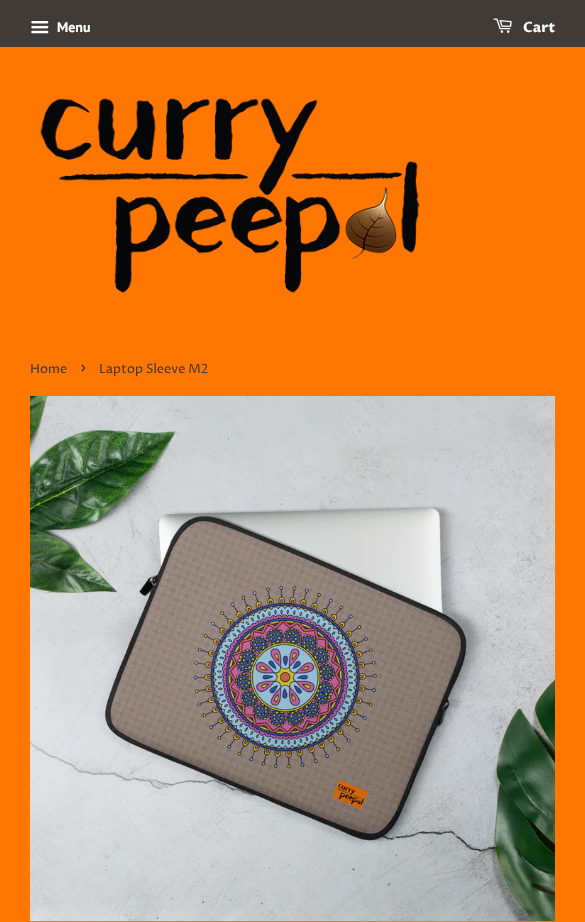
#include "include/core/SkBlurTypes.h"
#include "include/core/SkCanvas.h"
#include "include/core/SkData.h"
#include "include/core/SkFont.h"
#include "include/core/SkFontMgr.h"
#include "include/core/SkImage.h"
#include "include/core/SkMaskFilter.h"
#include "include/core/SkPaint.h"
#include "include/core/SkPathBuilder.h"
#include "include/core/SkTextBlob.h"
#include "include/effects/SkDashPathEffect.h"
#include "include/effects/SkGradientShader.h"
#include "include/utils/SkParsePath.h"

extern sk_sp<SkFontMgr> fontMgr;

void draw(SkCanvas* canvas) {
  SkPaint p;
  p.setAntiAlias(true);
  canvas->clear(SkColorSetRGB(255, 118, 0));
  p.setColor(SkColorSetRGB(64, 59, 55));
  canvas->drawRect(SkRect::MakeLTRB(0, 0, 585, 47), p);
  canvas->drawImageRect(SkImages::DeferredFromEncodedData(SkData::MakeFromFileName("images/1.png")), SkRect::MakeLTRB(31, 21, 49, 34), SkSamplingOptions());
  canvas->drawImageRect(SkImages::DeferredFromEncodedData(SkData::MakeFromFileName("images/2.png")), SkRect::MakeLTRB(493, 18, 512, 33), SkSamplingOptions());
  canvas->drawImageRect(SkImages::DeferredFromEncodedData(SkData::MakeFromFileName("images/3.png")), SkRect::MakeLTRB(40, 98, 420, 293), SkSamplingOptions());
  canvas->drawImageRect(SkImages::DeferredFromEncodedData(SkData::MakeFromFileName("images/4.png")), SkRect::MakeLTRB(30, 396, 555, 921), SkSamplingOptions());
  SkFont font1(fontMgr->matchFamilyStyle("PT Sans", SkFontStyle::Bold()), 14);
  font1.setSubpixel(true);
  p.setColor(SK_ColorWHITE);
  canvas->drawString("Menu", 57, 32, font1, p);
  SkFont font2(fontMgr->matchFamilyStyle("Proza Libre", SkFontStyle::Bold()), 14);
  font2.setSubpixel(true);
  canvas->drawString("Cart", 523, 32, font2, p);
  SkFont font3(fontMgr->matchFamilyStyle("Proza Libre", SkFontStyle::Normal()), 12.75f);
  font3.setSubpixel(true);
  p.setColor(SkColorSetRGB(64, 59, 55));
  canvas->drawString("Home", 30, 373, font3, p);
  SkFont font4(fontMgr->matchFamilyStyle("Proza Libre", SkFontStyle::Normal()), 18);
  font4.setSubpixel(true);
  canvas->drawString("›", 80, 373, font4, p);
  canvas->drawString("Laptop Sleeve M2", 99, 373, font3, p);
}
